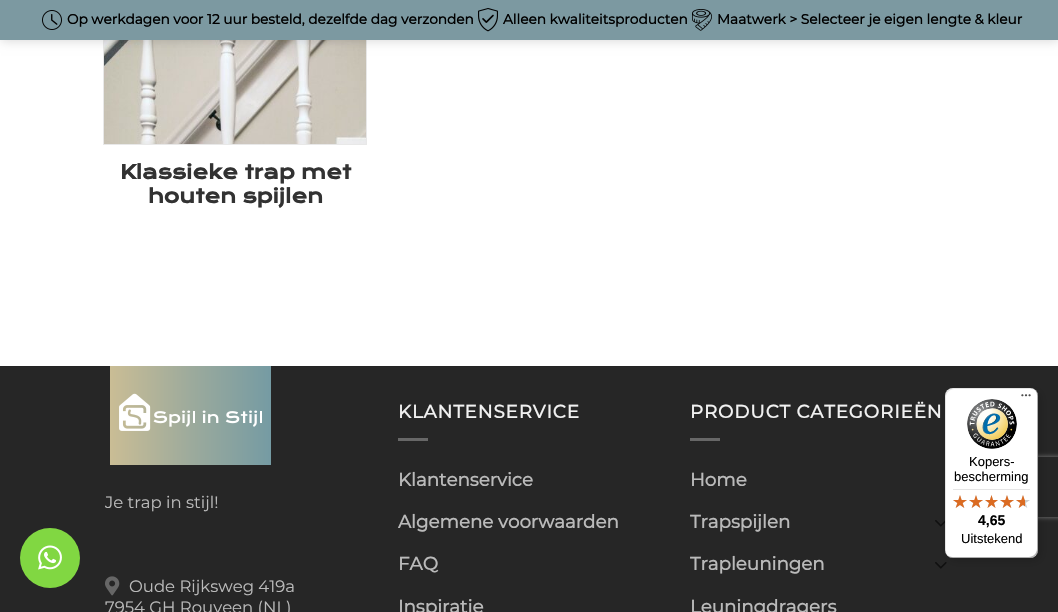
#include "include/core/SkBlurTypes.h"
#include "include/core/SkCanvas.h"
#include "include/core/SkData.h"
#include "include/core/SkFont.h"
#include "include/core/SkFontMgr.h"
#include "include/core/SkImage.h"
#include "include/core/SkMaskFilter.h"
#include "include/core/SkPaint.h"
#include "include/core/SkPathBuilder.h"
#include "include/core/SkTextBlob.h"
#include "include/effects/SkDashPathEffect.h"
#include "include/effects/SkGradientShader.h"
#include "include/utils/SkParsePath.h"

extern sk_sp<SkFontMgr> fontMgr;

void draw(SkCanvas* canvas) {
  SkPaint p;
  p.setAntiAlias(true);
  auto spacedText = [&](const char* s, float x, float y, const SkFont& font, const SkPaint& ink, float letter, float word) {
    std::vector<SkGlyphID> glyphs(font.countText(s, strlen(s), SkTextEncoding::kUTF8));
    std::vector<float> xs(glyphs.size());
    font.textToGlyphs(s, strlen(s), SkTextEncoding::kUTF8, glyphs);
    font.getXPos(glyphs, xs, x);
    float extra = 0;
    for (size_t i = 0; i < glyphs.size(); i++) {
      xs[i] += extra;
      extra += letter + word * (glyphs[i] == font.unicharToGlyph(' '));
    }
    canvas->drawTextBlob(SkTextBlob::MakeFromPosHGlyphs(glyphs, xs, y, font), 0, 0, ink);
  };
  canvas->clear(SK_ColorWHITE);
  p.setStyle(SkPaint::kStroke_Style);
  p.setStrokeWidth(1);
  p.setColor(SkColorSetRGB(232, 232, 232));
  canvas->drawRect(SkRect::MakeLTRB(103.5f, -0.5f, 366.5f, 144.5f), p);
  canvas->drawImageRect(SkImages::DeferredFromEncodedData(SkData::MakeFromFileName("images/4.png")), SkRect::MakeLTRB(104, 40, 366, 144), SkSamplingOptions());
  p.setStyle(SkPaint::kFill_Style);
  p.setColor(SkColorSetARGB(38, 0, 0, 0));
  p.setMaskFilter(SkMaskFilter::MakeBlur(kNormal_SkBlurStyle, 5));
  canvas->drawRect(SkRect::MakeLTRB(1, 1, 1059, 41), p);
  p.setMaskFilter(nullptr);
  p.setColor(SkColorSetRGB(124, 153, 161));
  canvas->drawRect(SkRect::MakeLTRB(0, 0, 1058, 40), p);
  canvas->drawImageRect(SkImages::DeferredFromEncodedData(SkData::MakeFromFileName("images/1.png")), SkRect::MakeLTRB(42, 10, 62, 30), SkSamplingOptions());
  canvas->drawImageRect(SkImages::DeferredFromEncodedData(SkData::MakeFromFileName("images/2.png")), SkRect::MakeLTRB(478, 8, 498, 32), SkSamplingOptions());
  canvas->drawImageRect(SkImages::DeferredFromEncodedData(SkData::MakeFromFileName("images/3.png")), SkRect::MakeLTRB(692, 9, 712, 31), SkSamplingOptions());
  p.setColor(SkColorSetRGB(38, 38, 38));
  canvas->drawRect(SkRect::MakeLTRB(0, 367, 1058, 612), p);
  p.setColor(SkColorSetRGB(36, 36, 36));
  canvas->drawRect(SkRect::MakeLTRB(0, 366, 1058, 367), p);
  canvas->drawImageRect(SkImages::DeferredFromEncodedData(SkData::MakeFromFileName("images/5.png")), SkRect::MakeLTRB(110, 366, 271, 465), SkSamplingOptions());
  canvas->drawImageRect(SkImages::DeferredFromEncodedData(SkData::MakeFromFileName("images/6.png")), SkRect::MakeLTRB(105, 576, 120, 596), SkSamplingOptions());
  p.setColor(SkColorSetRGB(103, 103, 103));
  canvas->drawRect(SkRect::MakeLTRB(398, 438, 428, 441), p);
  canvas->drawRect(SkRect::MakeLTRB(690, 438, 720, 441), p);
  canvas->drawImageRect(SkImages::DeferredFromEncodedData(SkData::MakeFromFileName("images/7.png")), SkRect::MakeLTRB(935, 520, 945, 527), SkSamplingOptions());
  canvas->drawImageRect(SkImages::DeferredFromEncodedData(SkData::MakeFromFileName("images/8.png")), SkRect::MakeLTRB(935, 562, 947, 569), SkSamplingOptions());
  canvas->save();
  canvas->clipPath(SkPathBuilder(SkPathFillType::kEvenOdd).moveTo(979, 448).lineTo(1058, 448).lineTo(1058, 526).lineTo(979, 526).close().moveTo(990, 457).lineTo(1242, 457).cubicTo(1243, 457, 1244, 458, 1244, 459).lineTo(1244, 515).cubicTo(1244, 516, 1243, 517, 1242, 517).lineTo(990, 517).cubicTo(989, 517, 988, 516, 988, 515).lineTo(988, 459).cubicTo(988, 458, 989, 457, 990, 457).close().detach(), true);
  p.setColor(SkColorSetRGB(128, 128, 128));
  p.setMaskFilter(SkMaskFilter::MakeBlur(kNormal_SkBlurStyle, 2.5f));
  canvas->drawRoundRect(SkRect::MakeLTRB(988, 457, 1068, 517), 2, 2, p);
  p.setMaskFilter(nullptr);
  canvas->restore();
  p.setColor(SkColorSetARGB(38, 0, 0, 0));
  p.setMaskFilter(SkMaskFilter::MakeBlur(kNormal_SkBlurStyle, 4));
  canvas->drawRoundRect(SkRect::MakeLTRB(948, 391, 1041, 561), 8, 8, p);
  p.setMaskFilter(nullptr);
  p.setColor(SK_ColorWHITE);
  canvas->drawRoundRect(SkRect::MakeLTRB(945, 388, 1038, 558), 8, 8, p);
  p.setColor(SkColorSetARGB(26, 0, 0, 0));
  canvas->drawPath(SkPathBuilder().moveTo(954, 389).lineTo(1031, 389).cubicTo(1033, 389, 1035, 390, 1037, 392).cubicTo(1035, 390, 1033, 388, 1030, 388).lineTo(953, 388).cubicTo(949, 388, 945, 392, 945, 396).lineTo(945, 550).cubicTo(945, 553, 947, 555, 949, 557).cubicTo(947, 555, 946, 553, 946, 551).lineTo(946, 397).cubicTo(946, 393, 950, 389, 954, 389).close().detach(), p);
  p.setColor(SkColorSetARGB(51, 0, 0, 0));
  canvas->drawPath(SkPathBuilder().moveTo(946, 554).cubicTo(948, 556, 950, 558, 953, 558).lineTo(1030, 558).cubicTo(1034, 558, 1038, 554, 1038, 550).lineTo(1038, 396).cubicTo(1038, 393, 1036, 391, 1034, 389).cubicTo(1036, 391, 1037, 393, 1037, 395).lineTo(1037, 549).cubicTo(1037, 553, 1033, 557, 1029, 557).lineTo(952, 557).cubicTo(950, 557, 948, 556, 946, 554).close().detach(), p);
  p.setColor(SkColorSetARGB(51, 50, 50, 50));
  canvas->drawPath(SkPathBuilder().moveTo(947, 555).cubicTo(948, 557, 951, 558, 953, 558).lineTo(1030, 558).cubicTo(1034, 558, 1038, 554, 1038, 550).lineTo(1038, 396).cubicTo(1038, 394, 1037, 391, 1035, 390).cubicTo(1036, 391, 1037, 393, 1037, 395).lineTo(1037, 549).cubicTo(1037, 554, 1034, 557, 1029, 557).lineTo(952, 557).cubicTo(950, 557, 948, 556, 947, 555).close().detach(), p);
  canvas->drawImageRect(SkImages::DeferredFromEncodedData(SkData::MakeFromFileName("images/9.png")), SkRect::MakeLTRB(1021, 394, 1031, 397), SkSamplingOptions());
  p.setColor(SkColorSetARGB(77, 255, 255, 255));
  canvas->drawPath(SkPathBuilder().moveTo(1030, 558).cubicTo(1034.5f, 558, 1038, 554.5f, 1038, 550).cubicTo(1038, 554, 1034, 558, 1030, 558).close().detach(), p);
  canvas->drawImageRect(SkImages::DeferredFromEncodedData(SkData::MakeFromFileName("images/10.png")), SkRect::MakeLTRB(967, 399, 1017, 449), SkSamplingOptions());
  p.setColor(SkColorSetRGB(229, 229, 229));
  canvas->drawRect(SkRect::MakeLTRB(953, 489, 1030, 490), p);
  canvas->drawImageRect(SkImages::DeferredFromEncodedData(SkData::MakeFromFileName("images/11.png")), SkRect::MakeLTRB(953, 495, 967, 508), SkSamplingOptions());
  canvas->drawImageRect(SkImages::DeferredFromEncodedData(SkData::MakeFromFileName("images/11.png")), SkRect::MakeLTRB(969, 495, 983, 508), SkSamplingOptions());
  canvas->drawImageRect(SkImages::DeferredFromEncodedData(SkData::MakeFromFileName("images/12.png")), SkRect::MakeLTRB(985, 495, 998, 508), SkSamplingOptions());
  canvas->drawImageRect(SkImages::DeferredFromEncodedData(SkData::MakeFromFileName("images/11.png")), SkRect::MakeLTRB(1000, 495, 1014, 508), SkSamplingOptions());
  canvas->drawImageRect(SkImages::DeferredFromEncodedData(SkData::MakeFromFileName("images/11.png")), SkRect::MakeLTRB(1016, 495, 1030, 508), SkSamplingOptions());
  canvas->drawImageRect(SkImages::DeferredFromEncodedData(SkData::MakeFromFileName("images/13.png")), SkRect::MakeLTRB(953, 495, 967, 508), SkSamplingOptions());
  canvas->drawImageRect(SkImages::DeferredFromEncodedData(SkData::MakeFromFileName("images/13.png")), SkRect::MakeLTRB(969, 495, 983, 508), SkSamplingOptions());
  canvas->drawImageRect(SkImages::DeferredFromEncodedData(SkData::MakeFromFileName("images/14.png")), SkRect::MakeLTRB(985, 495, 998, 508), SkSamplingOptions());
  canvas->drawImageRect(SkImages::DeferredFromEncodedData(SkData::MakeFromFileName("images/13.png")), SkRect::MakeLTRB(1000, 495, 1014, 508), SkSamplingOptions());
  canvas->drawImageRect(SkImages::DeferredFromEncodedData(SkData::MakeFromFileName("images/15.png")), SkRect::MakeLTRB(1016, 495, 1025, 508), SkSamplingOptions());
  p.setColor(SkColorSetRGB(129, 215, 66));
  canvas->drawCircle(50, 558, 30, p);
  canvas->drawImageRect(SkImages::DeferredFromEncodedData(SkData::MakeFromFileName("images/16.png")), SkRect::MakeLTRB(38, 545, 62, 570), SkSamplingOptions());
  SkFont font1(fontMgr->matchFamilyStyle("Montserrat", SkFontStyle::Bold()), 13.7f);
  font1.setSubpixel(true);
  p.setColor(SK_ColorBLACK);
  canvas->drawString("Op werkdagen voor 12 uur besteld, dezelfde dag verzonden", 67, 24, font1, p);
  canvas->drawString("Alleen kwaliteitsproducten", 503, 24, font1, p);
  canvas->drawString("Maatwerk > Selecteer je eigen lengte & kleur", 717, 24, font1, p);
  SkFont font2(fontMgr->matchFamilyStyle("Krona One", SkFontStyle::Bold()), 18.9f);
  font2.setSubpixel(true);
  p.setColor(SkColorSetRGB(50, 50, 50));
  canvas->drawString("Klassieke trap met", 120, 179, font2, p);
  canvas->drawString("houten spijlen", 148, 203, font2, p);
  SkFont font3(fontMgr->matchFamilyStyle("Montserrat", SkFontStyle(100, SkFontStyle::kNormal_Width, SkFontStyle::kUpright_Slant)), 16.5f);
  font3.setSubpixel(true);
  p.setColor(SkColorSetRGB(186, 186, 186));
  canvas->drawString("Je trap in stijl!", 105, 508, font3, p);
  canvas->drawString("Oude Rijksweg 419a", 129, 592, font3, p);
  canvas->drawString("7954 GH Rouveen (NL)", 105, 613, font3, p);
  SkFont font4(fontMgr->matchFamilyStyle("Montserrat", SkFontStyle::Bold()), 18.25f);
  font4.setSubpixel(true);
  p.setColor(SkColorSetRGB(241, 241, 241));
  spacedText("KLANTENSERVICE", 398, 418, font4, p, 0.9f, 0);
  p.setColor(SkColorSetRGB(186, 186, 186));
  canvas->drawString("Klantenservice", 398, 486, font4, p);
  canvas->drawString("Algemene voorwaarden", 398, 528, font4, p);
  canvas->drawString("FAQ", 398, 570, font4, p);
  canvas->drawString("Inspiratie", 398, 613, font4, p);
  p.setColor(SkColorSetRGB(241, 241, 241));
  spacedText("PRODUCT CATEGORIEËN", 690, 418, font4, p, 0.9f, 0);
  p.setColor(SkColorSetRGB(186, 186, 186));
  canvas->drawString("Home", 690, 486, font4, p);
  canvas->drawString("Trapspijlen", 690, 528, font4, p);
  canvas->drawString("Trapleuningen", 690, 570, font4, p);
  canvas->drawString("Leuningdragers", 690, 613, font4, p);
  SkFont font5(fontMgr->matchFamilyStyle("Liberation Sans", SkFontStyle::Normal()), 13);
  font5.setSubpixel(true);
  p.setColor(SK_ColorBLACK);
  canvas->drawString("Kopers-", 969, 466, font5, p);
  canvas->drawString("bescherming", 954, 481, font5, p);
  SkFont font6(fontMgr->matchFamilyStyle("Liberation Sans", SkFontStyle::Bold()), 14);
  font6.setSubpixel(true);
  canvas->drawString("4,65", 978, 525, font6, p);
  canvas->drawString("Uitstekend", 961, 543, font5, p);
}
